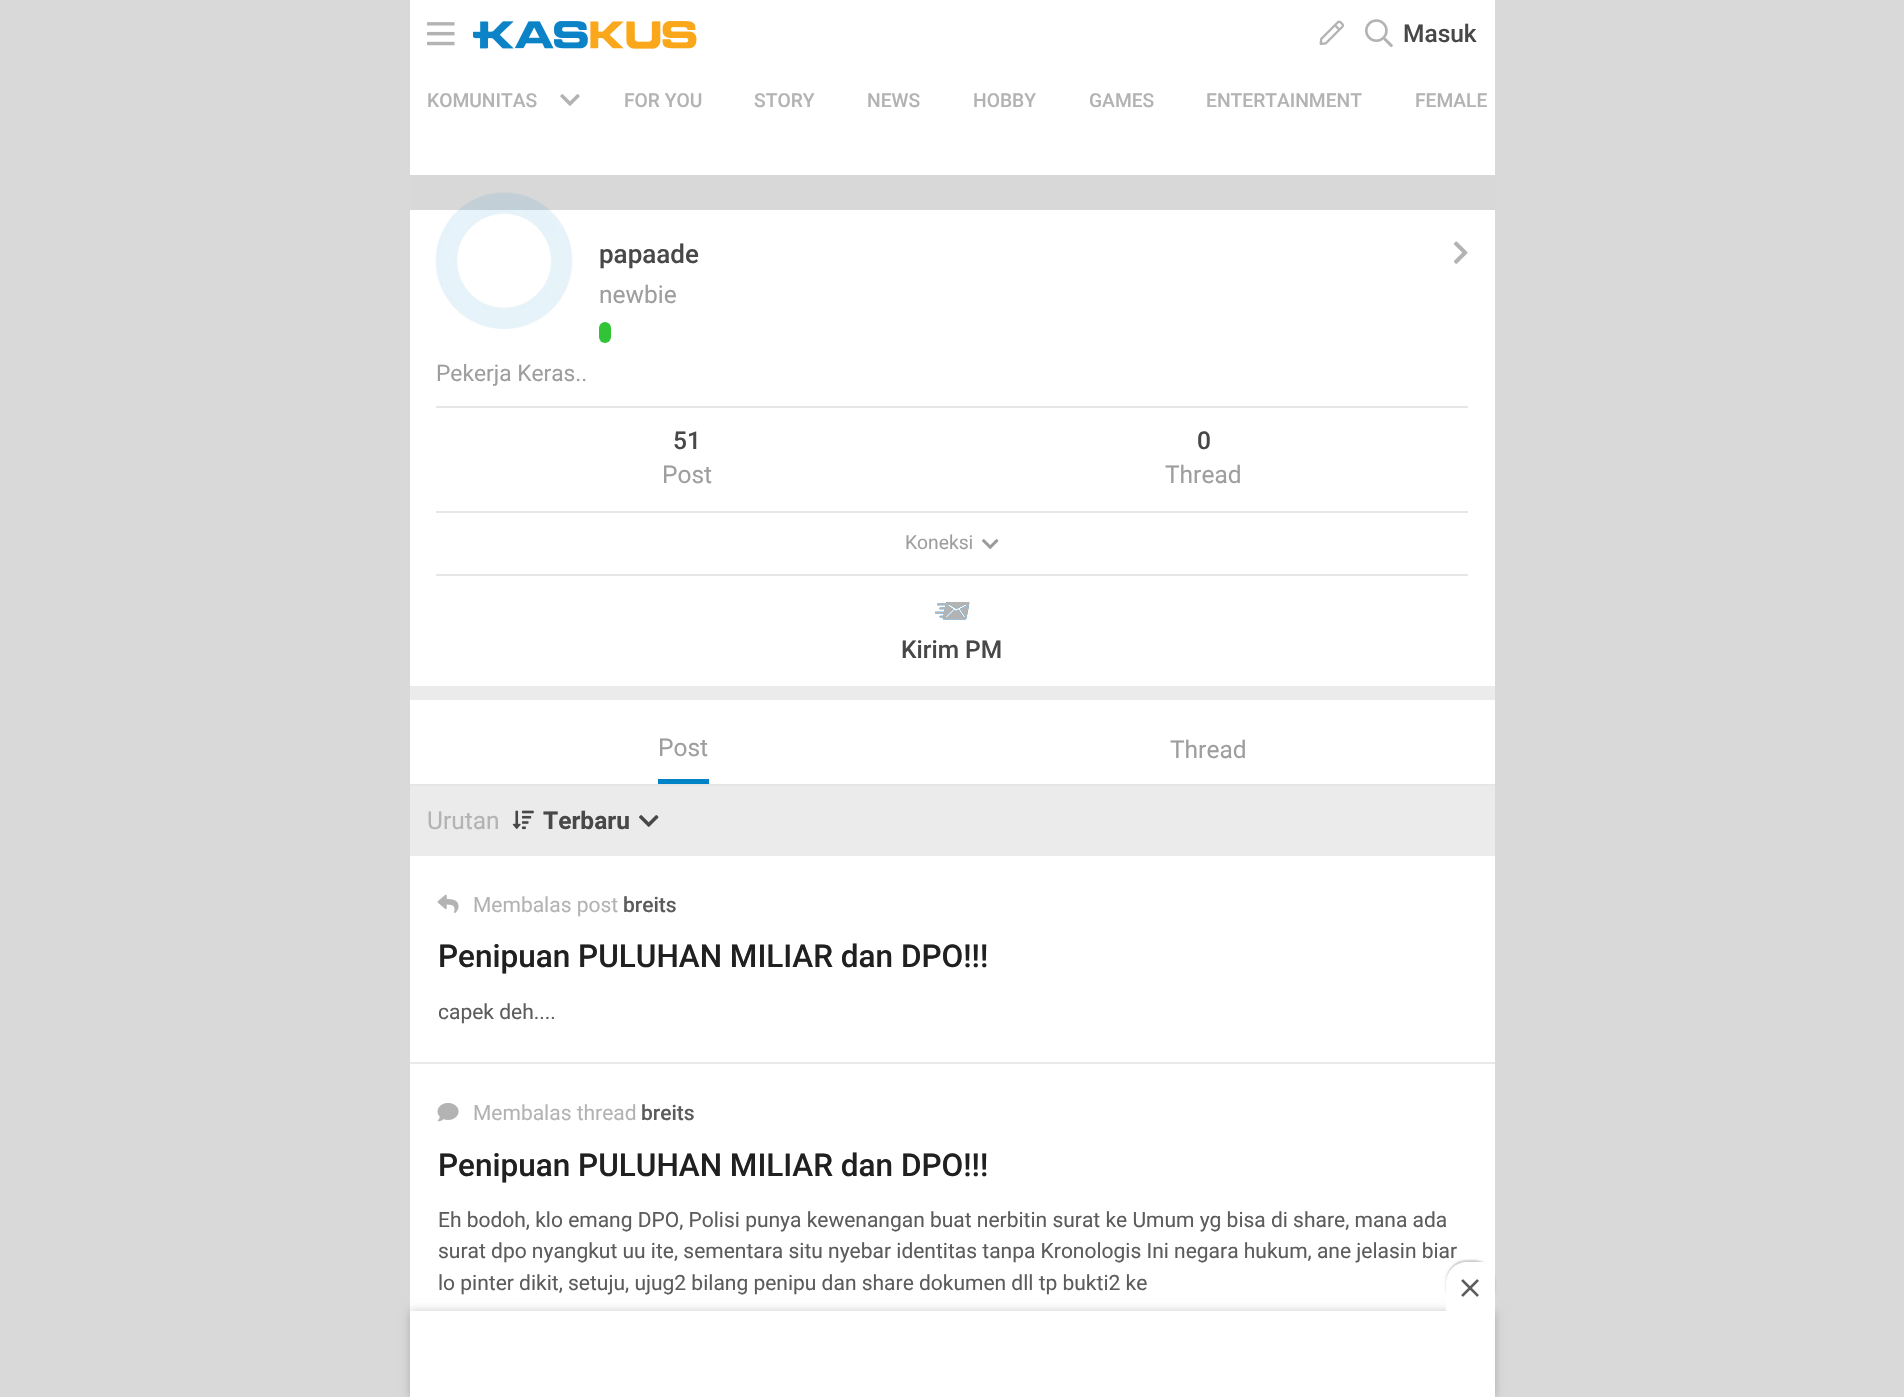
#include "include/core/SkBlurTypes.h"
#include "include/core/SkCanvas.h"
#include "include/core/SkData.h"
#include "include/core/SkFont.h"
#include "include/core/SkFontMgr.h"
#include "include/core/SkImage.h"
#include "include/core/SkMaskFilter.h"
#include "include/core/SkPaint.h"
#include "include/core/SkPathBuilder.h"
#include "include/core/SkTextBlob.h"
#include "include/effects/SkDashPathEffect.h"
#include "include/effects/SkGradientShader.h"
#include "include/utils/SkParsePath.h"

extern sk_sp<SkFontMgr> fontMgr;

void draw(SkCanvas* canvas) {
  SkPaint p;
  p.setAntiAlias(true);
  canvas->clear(SkColorSetRGB(217, 217, 217));
  p.setColor(SK_ColorWHITE);
  canvas->drawRect(SkRect::MakeLTRB(410, 0, 1495, 1311), p);
  canvas->drawImageRect(SkImages::DeferredFromEncodedData(SkData::MakeFromFileName("images/1.png")), SkRect::MakeLTRB(427, 22, 455, 46), SkSamplingOptions());
  canvas->drawImageRect(SkImages::DeferredFromEncodedData(SkData::MakeFromFileName("images/2.png")), SkRect::MakeLTRB(473, 21, 697, 49), SkSamplingOptions());
  canvas->drawImageRect(SkImages::DeferredFromEncodedData(SkData::MakeFromFileName("images/3.png")), SkRect::MakeLTRB(1319, 20, 1344, 45), SkSamplingOptions());
  canvas->drawImageRect(SkImages::DeferredFromEncodedData(SkData::MakeFromFileName("images/4.png")), SkRect::MakeLTRB(1365, 19, 1393, 48), SkSamplingOptions());
  canvas->drawImageRect(SkImages::DeferredFromEncodedData(SkData::MakeFromFileName("images/5.png")), SkRect::MakeLTRB(560, 94, 580, 106), SkSamplingOptions());
  p.setColor(SkColorSetRGB(216, 216, 216));
  canvas->drawRect(SkRect::MakeLTRB(410, 175, 1495, 210), p);
  canvas->drawImageRect(SkImages::DeferredFromEncodedData(SkData::MakeFromFileName("images/6.png")), SkRect::MakeLTRB(435, 192, 573, 329), SkSamplingOptions());
  p.setColor(SkColorSetRGB(48, 196, 54));
  canvas->drawRoundRect(SkRect::MakeLTRB(599, 322, 611, 343), 6, 6, p);
  canvas->drawImageRect(SkImages::DeferredFromEncodedData(SkData::MakeFromFileName("images/7.png")), SkRect::MakeLTRB(1454, 241, 1468, 264), SkSamplingOptions());
  p.setColor(SkColorSetRGB(235, 235, 235));
  canvas->drawRect(SkRect::MakeLTRB(410, 686, 1495, 700), p);
  p.setColor(SkColorSetRGB(230, 230, 230));
  canvas->drawRect(SkRect::MakeLTRB(436, 406, 1468, 408), p);
  canvas->drawRect(SkRect::MakeLTRB(436, 511, 1468, 513), p);
  canvas->drawImageRect(SkImages::DeferredFromEncodedData(SkData::MakeFromFileName("images/8.png")), SkRect::MakeLTRB(982, 539, 999, 549), SkSamplingOptions());
  canvas->drawRect(SkRect::MakeLTRB(436, 574, 1468, 576), p);
  canvas->drawImageRect(SkImages::DeferredFromEncodedData(SkData::MakeFromFileName("images/9.png")), SkRect::MakeLTRB(935, 602, 970, 620), SkSamplingOptions());
  canvas->drawRect(SkRect::MakeLTRB(410, 784, 1495, 786), p);
  p.setColor(SkColorSetRGB(0, 130, 198));
  canvas->drawRect(SkRect::MakeLTRB(658, 779, 709, 784), p);
  p.setColor(SkColorSetRGB(235, 235, 235));
  canvas->drawRect(SkRect::MakeLTRB(410, 786, 1495, 856), p);
  canvas->drawImageRect(SkImages::DeferredFromEncodedData(SkData::MakeFromFileName("images/10.png")), SkRect::MakeLTRB(512, 810, 534, 830), SkSamplingOptions());
  canvas->drawImageRect(SkImages::DeferredFromEncodedData(SkData::MakeFromFileName("images/11.png")), SkRect::MakeLTRB(639, 815, 659, 827), SkSamplingOptions());
  p.setColor(SkColorSetRGB(233, 233, 233));
  canvas->drawRect(SkRect::MakeLTRB(410, 1062, 1495, 1064), p);
  canvas->drawImageRect(SkImages::DeferredFromEncodedData(SkData::MakeFromFileName("images/12.png")), SkRect::MakeLTRB(437, 894, 459, 913), SkSamplingOptions());
  canvas->drawImageRect(SkImages::DeferredFromEncodedData(SkData::MakeFromFileName("images/13.png")), SkRect::MakeLTRB(437, 1103, 459, 1122), SkSamplingOptions());
  p.setColor(SkColorSetARGB(51, 0, 0, 0));
  p.setMaskFilter(SkMaskFilter::MakeBlur(kNormal_SkBlurStyle, 4.5f));
  canvas->drawRect(SkRect::MakeLTRB(410, 1311, 1495, 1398), p);
  p.setMaskFilter(nullptr);
  p.setColor(SK_ColorWHITE);
  canvas->drawRect(SkRect::MakeLTRB(410, 1311, 1495, 1397), p);
  p.setColor(SkColorSetARGB(51, 0, 0, 0));
  p.setMaskFilter(SkMaskFilter::MakeBlur(kNormal_SkBlurStyle, 1));
  canvas->drawRoundRect(SkRect::MakeLTRB(1446, 1260, 1495, 1309), 21, 21, p);
  p.setMaskFilter(nullptr);
  SkFont font1(fontMgr->matchFamilyStyle("Roboto", SkFontStyle(500, SkFontStyle::kNormal_Width, SkFontStyle::kUpright_Slant)), 24.5f);
  font1.setSubpixel(true);
  p.setColor(SkColorSetRGB(72, 72, 72));
  canvas->drawString("Masuk", 1403, 42, font1, p);
  SkFont font2(fontMgr->matchFamilyStyle("Roboto", SkFontStyle(500, SkFontStyle::kNormal_Width, SkFontStyle::kUpright_Slant)), 19.25f);
  font2.setSubpixel(true);
  p.setColor(SkColorSetRGB(179, 179, 179));
  canvas->drawString("KOMUNITAS", 427, 107, font2, p);
  canvas->drawString("FOR YOU", 624, 107, font2, p);
  canvas->drawString("STORY", 754, 107, font2, p);
  canvas->drawString("NEWS", 867, 107, font2, p);
  canvas->drawString("HOBBY", 973, 107, font2, p);
  canvas->drawString("GAMES", 1089, 107, font2, p);
  canvas->drawString("ENTERTAINMENT", 1206, 107, font2, p);
  canvas->drawString("FEMALE", 1415, 107, font2, p);
  SkFont font3(fontMgr->matchFamilyStyle("Roboto", SkFontStyle(500, SkFontStyle::kNormal_Width, SkFontStyle::kUpright_Slant)), 26);
  font3.setSubpixel(true);
  p.setColor(SkColorSetRGB(72, 72, 72));
  canvas->drawString("papaade", 599, 263, font3, p);
  SkFont font4(fontMgr->matchFamilyStyle("Roboto", SkFontStyle::Normal()), 24.5f);
  font4.setSubpixel(true);
  p.setColor(SkColorSetRGB(158, 158, 158));
  canvas->drawString("newbie", 599, 303, font4, p);
  SkFont font5(fontMgr->matchFamilyStyle("Roboto", SkFontStyle::Normal()), 22.75f);
  font5.setSubpixel(true);
  canvas->drawString("Pekerja Keras..", 436, 381, font5, p);
  p.setColor(SkColorSetRGB(72, 72, 72));
  canvas->drawString("51", 673, 449, font1, p);
  p.setColor(SkColorSetRGB(158, 158, 158));
  canvas->drawString("Post", 662, 483, font4, p);
  p.setColor(SkColorSetRGB(72, 72, 72));
  canvas->drawString("0", 1197, 449, font1, p);
  p.setColor(SkColorSetRGB(158, 158, 158));
  canvas->drawString("Thread", 1165, 483, font4, p);
  SkFont font6(fontMgr->matchFamilyStyle("Roboto", SkFontStyle::Normal()), 19.25f);
  font6.setSubpixel(true);
  canvas->drawString("Koneksi", 905, 549, font6, p);
  p.setColor(SkColorSetRGB(72, 72, 72));
  canvas->drawString("Kirim PM", 901, 658, font1, p);
  p.setColor(SkColorSetRGB(158, 158, 158));
  canvas->drawString("Post", 658, 756, font4, p);
  canvas->drawString("Thread", 1170, 758, font4, p);
  p.setColor(SkColorSetRGB(179, 179, 179));
  canvas->drawString("Urutan", 427, 829, font4, p);
  SkFont font7(fontMgr->matchFamilyStyle("Roboto", SkFontStyle::Bold()), 24.5f);
  font7.setSubpixel(true);
  p.setColor(SkColorSetRGB(72, 72, 72));
  canvas->drawString("Terbaru", 543, 829, font7, p);
  SkFont font8(fontMgr->matchFamilyStyle("Roboto", SkFontStyle::Normal()), 21);
  font8.setSubpixel(true);
  p.setColor(SkColorSetRGB(179, 179, 179));
  canvas->drawString("Membalas post", 473, 912, font8, p);
  SkFont font9(fontMgr->matchFamilyStyle("Roboto", SkFontStyle(500, SkFontStyle::kNormal_Width, SkFontStyle::kUpright_Slant)), 21);
  font9.setSubpixel(true);
  p.setColor(SkColorSetRGB(92, 92, 92));
  canvas->drawString("breits", 623, 912, font9, p);
  SkFont font10(fontMgr->matchFamilyStyle("Roboto", SkFontStyle(500, SkFontStyle::kNormal_Width, SkFontStyle::kUpright_Slant)), 31.5f);
  font10.setSubpixel(true);
  p.setColor(SkColorSetRGB(32, 32, 32));
  canvas->drawString("Penipuan PULUHAN MILIAR dan DPO!!!", 438, 967, font10, p);
  p.setColor(SkColorSetRGB(92, 92, 92));
  canvas->drawString("capek deh....", 438, 1019, font8, p);
  p.setColor(SkColorSetRGB(179, 179, 179));
  canvas->drawString("Membalas thread", 473, 1120, font8, p);
  p.setColor(SkColorSetRGB(92, 92, 92));
  canvas->drawString("breits", 641, 1120, font9, p);
  p.setColor(SkColorSetRGB(32, 32, 32));
  canvas->drawString("Penipuan PULUHAN MILIAR dan DPO!!!", 438, 1176, font10, p);
  p.setColor(SkColorSetRGB(92, 92, 92));
  canvas->drawString("Eh bodoh, klo emang DPO, Polisi punya kewenangan buat nerbitin surat ke Umum yg bisa di share, mana ada", 438, 1227, font8, p);
  canvas->drawString("surat dpo nyangkut uu ite, sementara situ nyebar identitas tanpa Kronologis Ini negara hukum, ane jelasin biar", 438, 1258, font8, p);
  canvas->drawString("lo pinter dikit, setuju, ujug2 bilang penipu dan share dokumen dll tp bukti2 ke", 438, 1290, font8, p);
  p.setColor(SK_ColorWHITE);
  canvas->drawPath(SkPathBuilder().moveTo(1467, 1262).lineTo(1495, 1262).lineTo(1495, 1311).lineTo(1446, 1311).lineTo(1446, 1283).cubicTo(1446, 1271.5f, 1455.5f, 1262, 1467, 1262).close().detach(), p);
  canvas->drawImageRect(SkImages::DeferredFromEncodedData(SkData::MakeFromFileName("images/14.png")), SkRect::MakeLTRB(1461, 1279, 1479, 1297), SkSamplingOptions());
}
